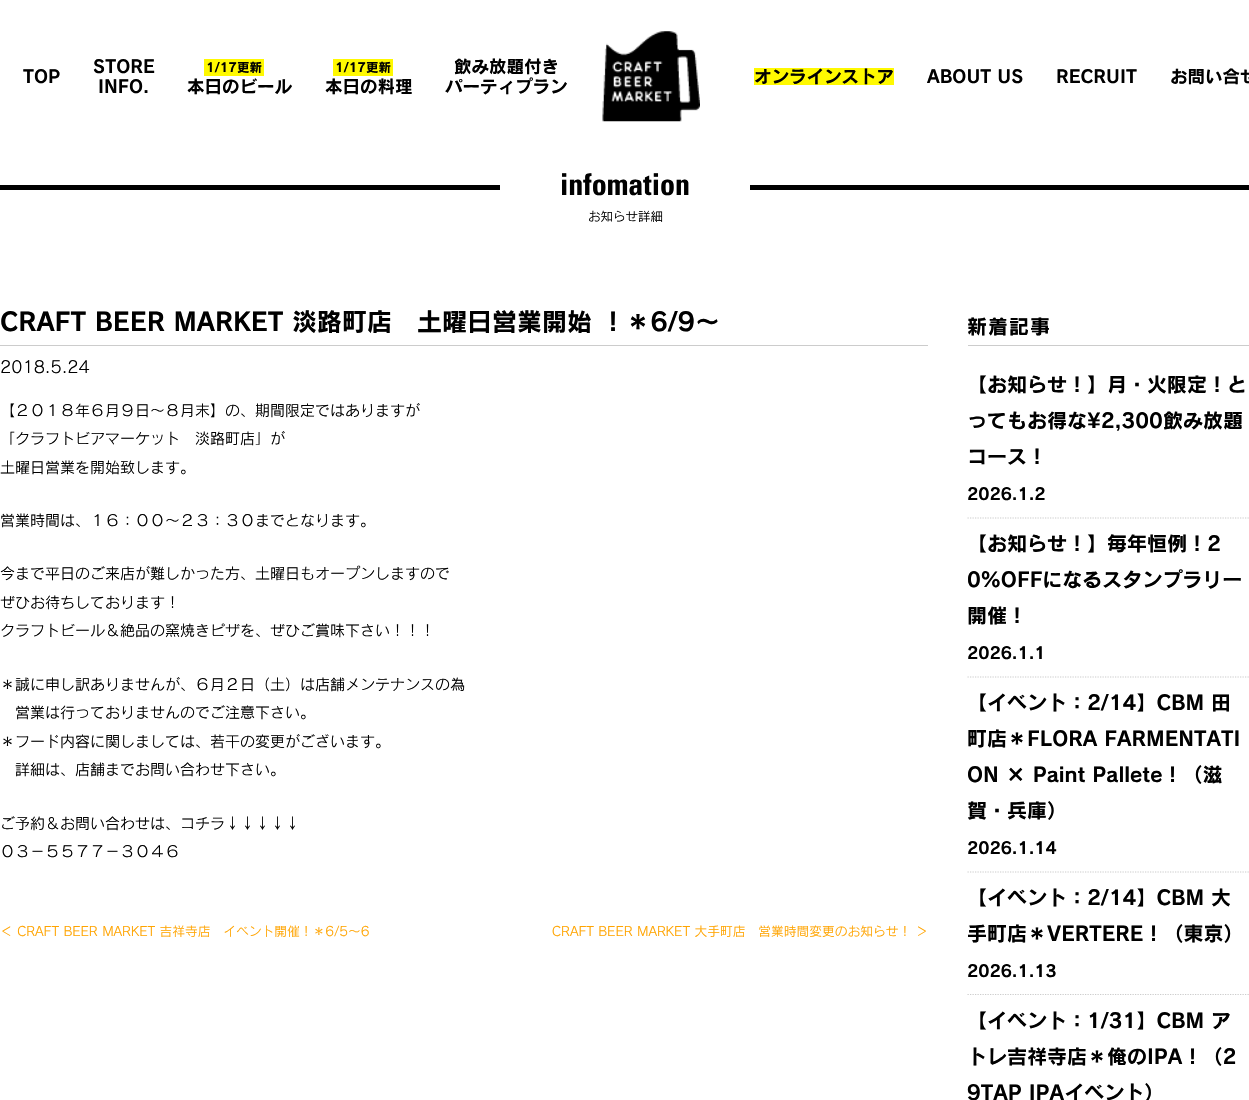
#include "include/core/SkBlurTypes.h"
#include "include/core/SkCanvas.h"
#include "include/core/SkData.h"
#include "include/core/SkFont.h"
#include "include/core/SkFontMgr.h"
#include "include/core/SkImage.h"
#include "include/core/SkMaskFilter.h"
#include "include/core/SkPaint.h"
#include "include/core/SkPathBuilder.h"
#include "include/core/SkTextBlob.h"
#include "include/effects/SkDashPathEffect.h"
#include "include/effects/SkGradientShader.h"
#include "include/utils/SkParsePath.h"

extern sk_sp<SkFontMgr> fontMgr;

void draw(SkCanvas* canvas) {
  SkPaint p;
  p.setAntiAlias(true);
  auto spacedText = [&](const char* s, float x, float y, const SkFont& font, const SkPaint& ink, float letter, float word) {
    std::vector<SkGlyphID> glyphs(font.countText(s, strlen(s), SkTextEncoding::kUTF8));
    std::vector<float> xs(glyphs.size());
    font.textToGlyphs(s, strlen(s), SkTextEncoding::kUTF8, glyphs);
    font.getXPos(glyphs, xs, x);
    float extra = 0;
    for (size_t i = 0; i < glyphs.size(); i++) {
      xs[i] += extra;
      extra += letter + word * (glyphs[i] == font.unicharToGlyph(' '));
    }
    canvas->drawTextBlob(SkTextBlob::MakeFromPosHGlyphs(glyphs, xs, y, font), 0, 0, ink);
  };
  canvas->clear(SK_ColorWHITE);
  p.setColor(SkColorSetRGB(255, 249, 0));
  canvas->drawRect(SkRect::MakeLTRB(204, 59, 264, 76), p);
  canvas->drawRect(SkRect::MakeLTRB(333, 59, 393, 76), p);
  canvas->drawImageRect(SkImages::DeferredFromEncodedData(SkData::MakeFromFileName("images/1.png")), SkRect::MakeLTRB(602, 31, 700, 122), SkSamplingOptions());
  canvas->drawRect(SkRect::MakeLTRB(754, 68, 894, 85), p);
  p.setColor(SK_ColorBLACK);
  canvas->drawRect(SkRect::MakeLTRB(0, 185, 1249, 190), p);
  p.setColor(SK_ColorWHITE);
  canvas->drawRect(SkRect::MakeLTRB(500, 185, 750, 190), p);
  p.setColor(SkColorSetRGB(204, 204, 204));
  canvas->drawRect(SkRect::MakeLTRB(0, 345, 928, 346), p);
  canvas->drawRect(SkRect::MakeLTRB(968, 345, 1249, 346), p);
  p.setStyle(SkPaint::kStroke_Style);
  p.setStrokeWidth(1.2f);
  p.setPathEffect(SkDashPathEffect::Make({{1.25f, 1.25f}}, 0));
  canvas->drawPath(SkPathBuilder().moveTo(967.5f, 518).lineTo(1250, 518).detach(), p);
  p.setPathEffect(nullptr);
  p.setPathEffect(SkDashPathEffect::Make({{1.25f, 1.25f}}, 0));
  canvas->drawPath(SkPathBuilder().moveTo(967.5f, 677).lineTo(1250, 677).detach(), p);
  p.setPathEffect(nullptr);
  p.setPathEffect(SkDashPathEffect::Make({{1.25f, 1.25f}}, 0));
  canvas->drawPath(SkPathBuilder().moveTo(967.5f, 872).lineTo(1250, 872).detach(), p);
  p.setPathEffect(nullptr);
  p.setPathEffect(SkDashPathEffect::Make({{1.25f, 1.25f}}, 0));
  canvas->drawPath(SkPathBuilder().moveTo(967.5f, 994.5f).lineTo(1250, 994.5f).detach(), p);
  p.setPathEffect(nullptr);
  SkFont font1(fontMgr->matchFamilyStyle("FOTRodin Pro", SkFontStyle::Bold()), 17.5f);
  font1.setSubpixel(true);
  p.setStyle(SkPaint::kFill_Style);
  p.setColor(SK_ColorBLACK);
  canvas->drawString("TOP", 23, 83, font1, p);
  canvas->drawString("STORE", 93, 73, font1, p);
  canvas->drawString("INFO.", 98, 93, font1, p);
  SkFont font2(fontMgr->matchFamilyStyle("FOTRodin Pro", SkFontStyle::Bold()), 12.5f);
  font2.setSubpixel(true);
  canvas->drawString("1/17更新", 206, 72, font2, p);
  canvas->drawString("本日のビール", 187, 93, font1, p);
  canvas->drawString("1/17更新", 335, 72, font2, p);
  canvas->drawString("本日の料理", 325, 93, font1, p);
  canvas->drawString("飲み放題付き", 454, 73, font1, p);
  canvas->drawString("パーティプラン", 445, 93, font1, p);
  canvas->drawString("オンラインストア", 754, 83, font1, p);
  canvas->drawString("ABOUT US", 927, 83, font1, p);
  canvas->drawString("RECRUIT", 1056, 83, font1, p);
  canvas->drawString("お問い合せ", 1170, 83, font1, p);
  SkFont font3(fontMgr->matchFamilyStyle("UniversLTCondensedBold", SkFontStyle::Normal()), 30);
  font3.setSubpixel(true);
  canvas->drawString("infomation", 560, 195, font3, p);
  SkFont font4(fontMgr->matchFamilyStyle("FOTRodin Pro", SkFontStyle(500, SkFontStyle::kNormal_Width, SkFontStyle::kUpright_Slant)), 12.5f);
  font4.setSubpixel(true);
  canvas->drawString("お知らせ詳細", 588, 221, font4, p);
  SkFont font5(fontMgr->matchFamilyStyle("FOTRodin Pro", SkFontStyle::Bold()), 25);
  font5.setSubpixel(true);
  canvas->drawString("CRAFT BEER MARKET 淡路町店　土曜日営業開始 ！＊6/9〜", 0, 331, font5, p);
  SkFont font6(fontMgr->matchFamilyStyle("FOTRodin Pro", SkFontStyle(500, SkFontStyle::kNormal_Width, SkFontStyle::kUpright_Slant)), 16.25f);
  font6.setSubpixel(true);
  canvas->drawString("2018.5.24", 0, 373, font6, p);
  SkFont font7(fontMgr->matchFamilyStyle("FOTRodin Pro", SkFontStyle(500, SkFontStyle::kNormal_Width, SkFontStyle::kUpright_Slant)), 15);
  font7.setSubpixel(true);
  canvas->drawString("【２０１８年６月９日〜８月末】の、期間限定ではありますが", 0, 416, font7, p);
  canvas->drawString("「クラフトビアマーケット　淡路町店」が", 0, 444, font7, p);
  canvas->drawString("土曜日営業を開始致します。", 0, 473, font7, p);
  canvas->drawString("営業時間は、１６：００〜２３：３０までとなります。", 0, 526, font7, p);
  canvas->drawString("今まで平日のご来店が難しかった方、土曜日もオープンしますので", 0, 579, font7, p);
  canvas->drawString("ぜひお待ちしております！", 0, 608, font7, p);
  canvas->drawString("クラフトビール＆絶品の窯焼きピザを、ぜひご賞味下さい！！！", 0, 636, font7, p);
  canvas->drawString("＊誠に申し訳ありませんが、６月２日（土）は店舗メンテナンスの為", 0, 690, font7, p);
  canvas->drawString("営業は行っておりませんのでご注意下さい。", 15, 718, font7, p);
  canvas->drawString("＊フード内容に関しましては、若干の変更がございます。", 0, 747, font7, p);
  canvas->drawString("詳細は、店舗までお問い合わせ下さい。", 15, 775, font7, p);
  canvas->drawString("ご予約＆お問い合わせは、コチラ↓↓↓↓↓", 0, 829, font7, p);
  canvas->drawString("０３−５５７７−３０４６", 0, 857, font7, p);
  SkFont font8(fontMgr->matchFamilyStyle("FOTRodin Pro", SkFontStyle(500, SkFontStyle::kNormal_Width, SkFontStyle::kUpright_Slant)), 12.75f);
  font8.setSubpixel(true);
  p.setColor(SkColorSetRGB(255, 164, 0));
  canvas->drawString("＜ CRAFT BEER MARKET 吉祥寺店　イベント開催！＊6/5〜6", 0, 936, font8, p);
  canvas->drawString("CRAFT BEER MARKET 大手町店　営業時間変更のお知らせ！ ＞", 552, 936, font8, p);
  SkFont font9(fontMgr->matchFamilyStyle("FOTRodin Pro", SkFontStyle::Bold()), 20);
  font9.setSubpixel(true);
  p.setColor(SK_ColorBLACK);
  spacedText("新着記事", 967, 334, font9, p, 1, 0);
  canvas->drawString("【お知らせ！】月・火限定！と", 967, 392, font9, p);
  canvas->drawString("ってもお得な¥2,300飲み放題", 967, 428, font9, p);
  canvas->drawString("コース！", 967, 464, font9, p);
  SkFont font10(fontMgr->matchFamilyStyle("FOTRodin Pro", SkFontStyle::Bold()), 16.25f);
  font10.setSubpixel(true);
  canvas->drawString("2026.1.2", 967, 500, font10, p);
  canvas->drawString("【お知らせ！】毎年恒例！2", 967, 551, font9, p);
  canvas->drawString("0%OFFになるスタンプラリー", 967, 587, font9, p);
  canvas->drawString("開催！", 967, 623, font9, p);
  canvas->drawString("2026.1.1", 967, 659, font10, p);
  canvas->drawString("【イベント：2/14】CBM 田", 967, 710, font9, p);
  canvas->drawString("町店＊FLORA FARMENTATI", 967, 746, font9, p);
  canvas->drawString("ON × Paint Pallete！（滋", 967, 782, font9, p);
  canvas->drawString("賀・兵庫）", 967, 818, font9, p);
  canvas->drawString("2026.1.14", 967, 854, font10, p);
  canvas->drawString("【イベント：2/14】CBM 大", 967, 905, font9, p);
  canvas->drawString("手町店＊VERTERE！（東京）", 967, 941, font9, p);
  canvas->drawString("2026.1.13", 967, 977, font10, p);
  canvas->drawString("【イベント：1/31】CBM ア", 967, 1028, font9, p);
  canvas->drawString("トレ吉祥寺店＊俺のIPA！（2", 967, 1064, font9, p);
  canvas->drawString("9TAP IPAイベント）", 967, 1100, font9, p);
}
